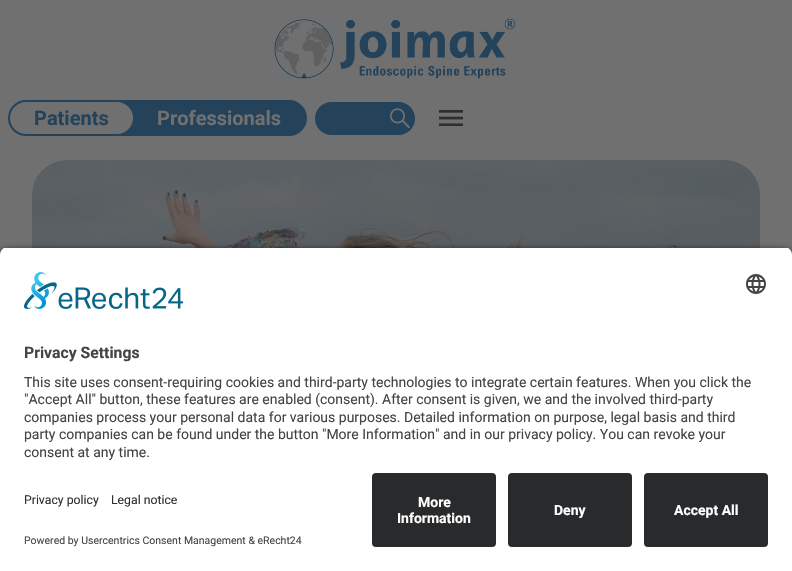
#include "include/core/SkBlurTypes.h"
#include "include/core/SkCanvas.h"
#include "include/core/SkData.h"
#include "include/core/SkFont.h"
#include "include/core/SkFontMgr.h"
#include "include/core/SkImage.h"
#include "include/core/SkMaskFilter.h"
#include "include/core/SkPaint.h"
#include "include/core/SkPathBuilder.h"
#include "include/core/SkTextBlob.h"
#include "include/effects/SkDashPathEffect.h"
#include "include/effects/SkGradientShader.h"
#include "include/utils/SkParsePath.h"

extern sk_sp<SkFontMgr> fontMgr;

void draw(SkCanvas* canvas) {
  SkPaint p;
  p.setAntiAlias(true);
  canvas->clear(SkColorSetRGB(112, 112, 112));
  canvas->drawImageRect(SkImages::DeferredFromEncodedData(SkData::MakeFromFileName("images/1.png")), SkRect::MakeLTRB(274, 18, 516, 79), SkSamplingOptions());
  p.setColor(SkColorSetRGB(36, 66, 89));
  canvas->drawRoundRect(SkRect::MakeLTRB(9, 101, 306, 135), 17, 17, p);
  p.setStyle(SkPaint::kStroke_Style);
  p.setStrokeWidth(2);
  canvas->drawRoundRect(SkRect::MakeLTRB(9, 101, 306, 135), 17, 17, p);
  p.setStyle(SkPaint::kFill_Style);
  p.setColor(SkColorSetRGB(112, 112, 112));
  canvas->drawRoundRect(SkRect::MakeLTRB(10, 102, 133, 134), 16, 16, p);
  p.setColor(SkColorSetRGB(36, 66, 89));
  canvas->drawRoundRect(SkRect::MakeLTRB(315, 102, 415, 135), 16.5f, 16.5f, p);
  canvas->drawImageRect(SkImages::DeferredFromEncodedData(SkData::MakeFromFileName("images/2.png")), SkRect::MakeLTRB(390, 108, 410, 129), SkSamplingOptions());
  canvas->drawImageRect(SkImages::DeferredFromEncodedData(SkData::MakeFromFileName("images/3.png")), SkRect::MakeLTRB(439, 110, 463, 126), SkSamplingOptions());
  canvas->drawImageRect(SkImages::DeferredFromEncodedData(SkData::MakeFromFileName("images/4.png")), SkRect::MakeLTRB(32, 160, 760, 248), SkSamplingOptions());
  p.setColor(SkColorSetARGB(204, 0, 0, 0));
  p.setMaskFilter(SkMaskFilter::MakeBlur(kNormal_SkBlurStyle, 3.5f));
  canvas->drawRoundRect(SkRect::MakeLTRB(0, 250, 792, 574), 8, 8, p);
  p.setMaskFilter(nullptr);
  canvas->save();
  canvas->clipPath(SkPathBuilder().moveTo(8, 247).lineTo(784, 247).cubicTo(788.5f, 247, 792, 250.5f, 792, 255).lineTo(792, 465).lineTo(0, 465).lineTo(0, 255).cubicTo(0, 250.5f, 3.5f, 247, 8, 247).close().detach(), true);
  p.setColor(SK_ColorWHITE);
  canvas->drawRect(SkRect::MakeLTRB(0, 248, 792, 465), p);
  canvas->restore();
  canvas->drawImageRect(SkImages::DeferredFromEncodedData(SkData::MakeFromFileName("images/5.png")), SkRect::MakeLTRB(24, 272, 184, 309), SkSamplingOptions());
  canvas->drawImageRect(SkImages::DeferredFromEncodedData(SkData::MakeFromFileName("images/6.png")), SkRect::MakeLTRB(746, 274, 766, 294), SkSamplingOptions());
  canvas->drawRect(SkRect::MakeLTRB(0, 465, 792, 571), p);
  p.setColor(SkColorSetRGB(41, 42, 43));
  canvas->drawRoundRect(SkRect::MakeLTRB(372, 473, 496, 547), 4, 4, p);
  canvas->drawRoundRect(SkRect::MakeLTRB(508, 473, 632, 547), 4, 4, p);
  canvas->drawRoundRect(SkRect::MakeLTRB(644, 473, 768, 547), 4, 4, p);
  SkFont font1(fontMgr->matchFamilyStyle("Roboto", SkFontStyle::Bold()), 20);
  font1.setSubpixel(true);
  p.setColor(SkColorSetRGB(36, 66, 89));
  canvas->drawString("Patients", 34, 125, font1, p);
  p.setColor(SkColorSetRGB(112, 112, 112));
  canvas->drawString("Professionals", 157, 125, font1, p);
  SkFont font2(fontMgr->matchFamilyStyle("Roboto", SkFontStyle::Bold()), 15.75f);
  font2.setSubpixel(true);
  p.setColor(SkColorSetRGB(68, 68, 68));
  canvas->drawString("Privacy Settings", 24, 358, font2, p);
  SkFont font3(fontMgr->matchFamilyStyle("Roboto", SkFontStyle::Normal()), 14);
  font3.setSubpixel(true);
  canvas->drawString("This site uses consent-requiring cookies and third-party technologies to integrate certain features. When you click the", 24, 387, font3, p);
  canvas->drawString("\"Accept All\" button, these features are enabled (consent). After consent is given, we and the involved third-party", 24, 404, font3, p);
  canvas->drawString("companies process your personal data for various purposes. Detailed information on purpose, legal basis and third", 24, 422, font3, p);
  canvas->drawString("party companies can be found under the button \"More Information\" and in our privacy policy. You can revoke your", 24, 439, font3, p);
  canvas->drawString("consent at any time.", 24, 457, font3, p);
  SkFont font4(fontMgr->matchFamilyStyle("Roboto", SkFontStyle::Normal()), 12.25f);
  font4.setSubpixel(true);
  p.setColor(SkColorSetRGB(48, 48, 48));
  canvas->drawString("Privacy policy", 24, 504, font4, p);
  canvas->drawString("Legal notice", 111, 504, font4, p);
  SkFont font5(fontMgr->matchFamilyStyle("Roboto", SkFontStyle::Normal()), 10.5f);
  font5.setSubpixel(true);
  p.setColor(SkColorSetRGB(68, 68, 68));
  canvas->drawString("Powered by Usercentrics Consent Management & eRecht24", 24, 544, font5, p);
  SkFont font6(fontMgr->matchFamilyStyle("Roboto", SkFontStyle::Bold()), 14);
  font6.setSubpixel(true);
  p.setColor(SK_ColorWHITE);
  canvas->drawString("More", 418, 507, font6, p);
  canvas->drawString("Information", 397, 523, font6, p);
  canvas->drawString("Deny", 554, 515, font6, p);
  canvas->drawString("Accept All", 674, 515, font6, p);
}
